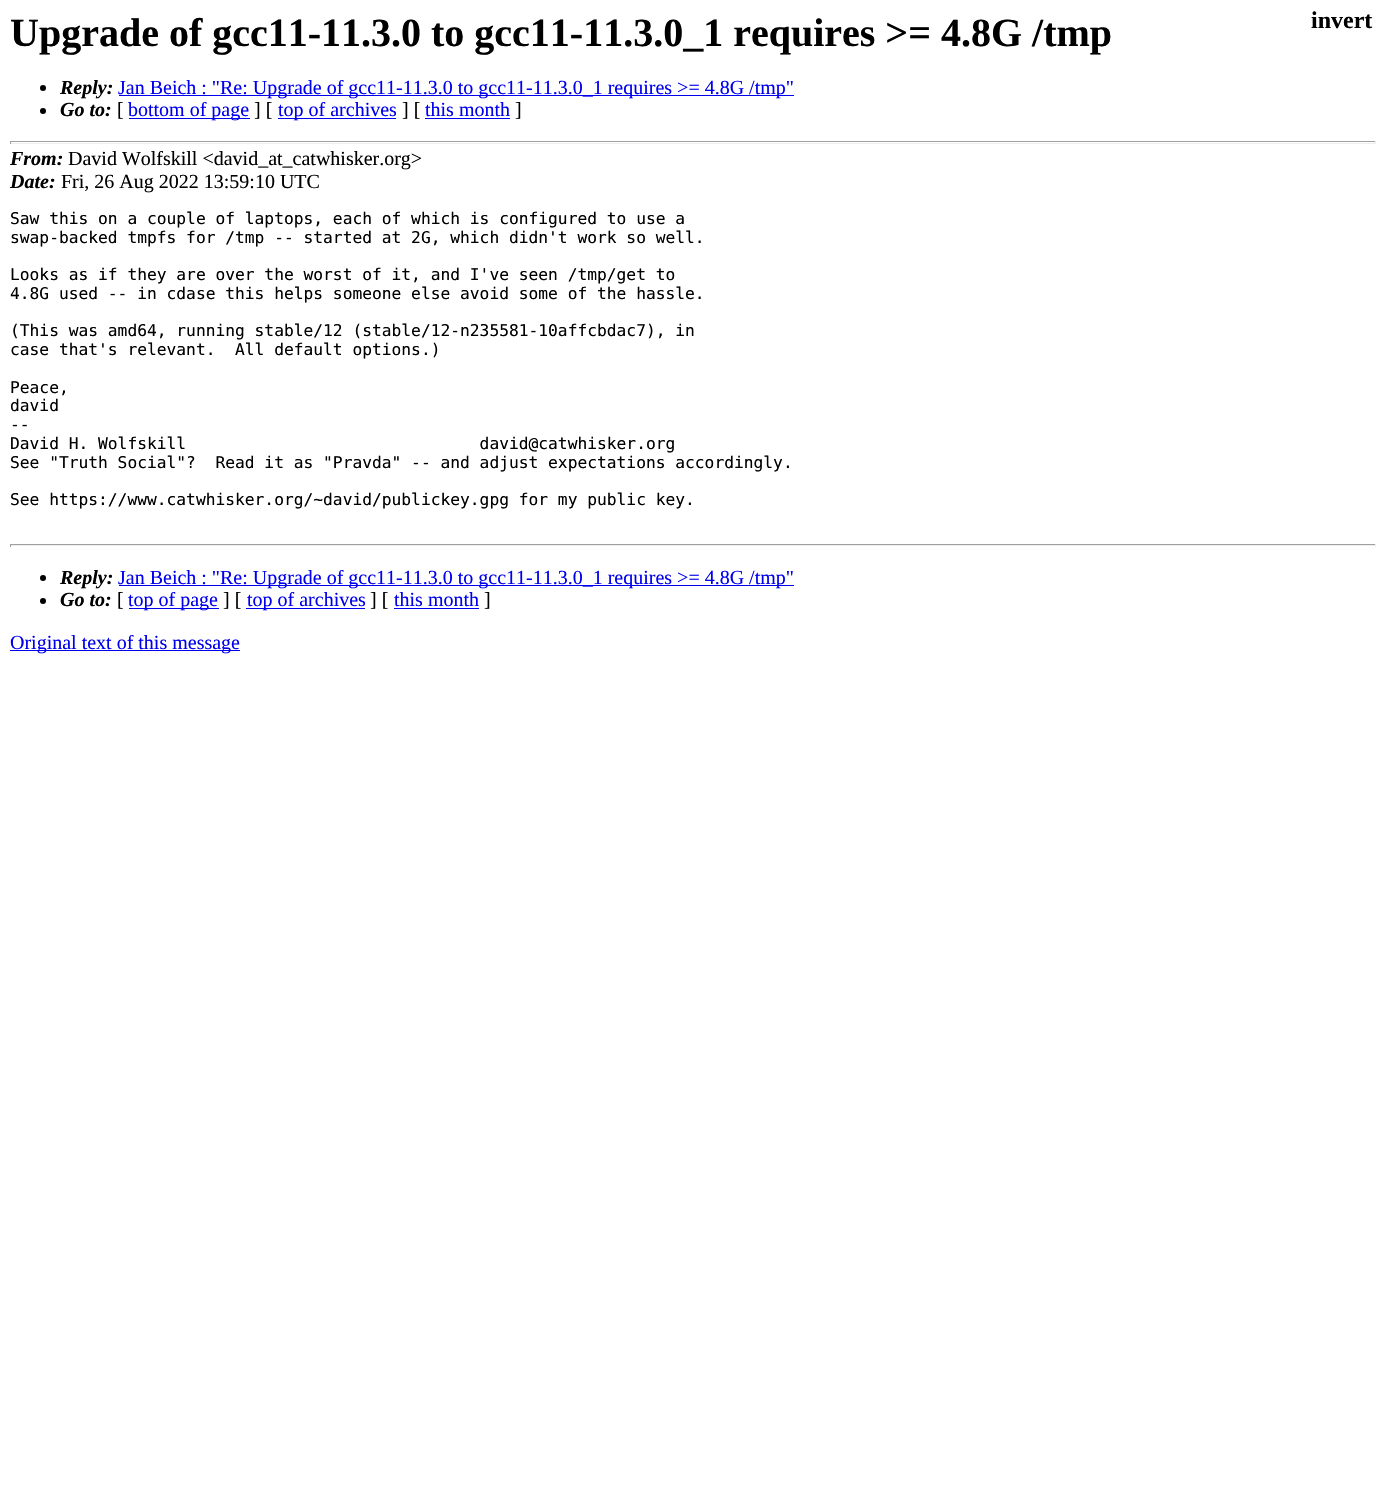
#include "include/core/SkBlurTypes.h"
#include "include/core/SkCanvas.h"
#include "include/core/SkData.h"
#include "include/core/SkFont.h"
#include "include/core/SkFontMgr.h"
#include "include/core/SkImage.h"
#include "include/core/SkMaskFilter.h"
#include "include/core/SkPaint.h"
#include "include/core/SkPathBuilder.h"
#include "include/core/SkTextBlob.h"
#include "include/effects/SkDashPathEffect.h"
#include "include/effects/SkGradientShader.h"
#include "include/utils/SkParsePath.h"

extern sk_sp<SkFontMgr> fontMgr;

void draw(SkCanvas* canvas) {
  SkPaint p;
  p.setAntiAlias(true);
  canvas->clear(SK_ColorWHITE);
  p.setColor(SK_ColorBLACK);
  canvas->drawCircle(43, 88, 3, p);
  p.setColor(SkColorSetRGB(0, 0, 238));
  canvas->drawRect(SkRect::MakeLTRB(119, 95, 794, 96), p);
  p.setColor(SK_ColorBLACK);
  canvas->drawCircle(43, 111, 3, p);
  p.setColor(SkColorSetRGB(0, 0, 238));
  canvas->drawRect(SkRect::MakeLTRB(129, 118, 250, 119), p);
  canvas->drawRect(SkRect::MakeLTRB(278, 118, 396, 119), p);
  canvas->drawRect(SkRect::MakeLTRB(425, 118, 510, 119), p);
  p.setColor(SkColorSetRGB(159, 159, 159));
  canvas->drawRect(SkRect::MakeLTRB(10, 141, 1376, 142), p);
  p.setColor(SkColorSetRGB(238, 238, 238));
  canvas->drawRect(SkRect::MakeLTRB(1375, 141, 1376, 144), p);
  canvas->drawRect(SkRect::MakeLTRB(10, 143, 1376, 144), p);
  p.setColor(SkColorSetRGB(159, 159, 159));
  canvas->drawRect(SkRect::MakeLTRB(10, 141, 11, 144), p);
  canvas->drawRect(SkRect::MakeLTRB(10, 544, 1376, 545), p);
  p.setColor(SkColorSetRGB(238, 238, 238));
  canvas->drawRect(SkRect::MakeLTRB(1375, 544, 1376, 547), p);
  canvas->drawRect(SkRect::MakeLTRB(10, 545, 1376, 546), p);
  p.setColor(SkColorSetRGB(159, 159, 159));
  canvas->drawRect(SkRect::MakeLTRB(10, 544, 11, 547), p);
  p.setColor(SK_ColorBLACK);
  canvas->drawCircle(43, 578, 3, p);
  p.setColor(SkColorSetRGB(0, 0, 238));
  canvas->drawRect(SkRect::MakeLTRB(119, 585, 794, 586), p);
  p.setColor(SK_ColorBLACK);
  canvas->drawCircle(43, 601, 3, p);
  p.setColor(SkColorSetRGB(0, 0, 238));
  canvas->drawRect(SkRect::MakeLTRB(129, 608, 219, 609), p);
  canvas->drawRect(SkRect::MakeLTRB(246, 608, 365, 609), p);
  canvas->drawRect(SkRect::MakeLTRB(394, 608, 479, 609), p);
  canvas->drawRect(SkRect::MakeLTRB(10, 650, 240, 651), p);
  SkFont font1(fontMgr->matchFamilyStyle("Liberation Serif", SkFontStyle::Bold()), 40);
  font1.setSubpixel(true);
  p.setColor(SK_ColorBLACK);
  canvas->drawString("Upgrade of gcc11-11.3.0 to gcc11-11.3.0_1 requires >= 4.8G /tmp", 10, 46, font1, p);
  SkFont font2(fontMgr->matchFamilyStyle("Liberation Serif", SkFontStyle::BoldItalic()), 20);
  font2.setSubpixel(true);
  canvas->drawString("Reply:", 60, 94, font2, p);
  SkFont font3(fontMgr->matchFamilyStyle("Liberation Serif", SkFontStyle::Normal()), 20);
  font3.setSubpixel(true);
  p.setColor(SkColorSetRGB(0, 0, 238));
  canvas->drawString("Jan Beich : \"Re: Upgrade of gcc11-11.3.0 to gcc11-11.3.0_1 requires >= 4.8G /tmp\"", 118, 94, font3, p);
  p.setColor(SK_ColorBLACK);
  canvas->drawString("Go to:", 60, 116, font2, p);
  canvas->drawString("[", 117, 116, font3, p);
  p.setColor(SkColorSetRGB(0, 0, 238));
  canvas->drawString("bottom of page", 128, 116, font3, p);
  p.setColor(SK_ColorBLACK);
  canvas->drawString("] [", 254, 116, font3, p);
  p.setColor(SkColorSetRGB(0, 0, 238));
  canvas->drawString("top of archives", 278, 116, font3, p);
  p.setColor(SK_ColorBLACK);
  canvas->drawString("] [", 402, 116, font3, p);
  p.setColor(SkColorSetRGB(0, 0, 238));
  canvas->drawString("this month", 425, 116, font3, p);
  p.setColor(SK_ColorBLACK);
  canvas->drawString("]", 515, 116, font3, p);
  SkFont font4(fontMgr->matchFamilyStyle("Liberation Serif", SkFontStyle::Bold()), 24);
  font4.setSubpixel(true);
  canvas->drawString("invert", 1311, 28, font4, p);
  canvas->drawString("From:", 10, 165, font2, p);
  canvas->drawString("David Wolfskill <david_at_catwhisker.org>", 68, 165, font3, p);
  canvas->drawString("Date:", 10, 188, font2, p);
  canvas->drawString("Fri, 26 Aug 2022 13:59:10 UTC", 61, 188, font3, p);
  SkFont font5(fontMgr->matchFamilyStyle("DejaVu Sans Mono", SkFontStyle::Normal()), 16.25f);
  font5.setSubpixel(true);
  canvas->drawString("Saw this on a couple of laptops, each of which is configured to use a", 10, 224, font5, p);
  canvas->drawString("swap-backed tmpfs for /tmp -- started at 2G, which didn't work so well.", 10, 243, font5, p);
  canvas->drawString("Looks as if they are over the worst of it, and I've seen /tmp/get to", 10, 280, font5, p);
  canvas->drawString("4.8G used -- in cdase this helps someone else avoid some of the hassle.", 10, 299, font5, p);
  canvas->drawString("(This was amd64, running stable/12 (stable/12-n235581-10affcbdac7), in", 10, 336, font5, p);
  canvas->drawString("case that's relevant.  All default options.)", 10, 355, font5, p);
  canvas->drawString("Peace,", 10, 393, font5, p);
  canvas->drawString("david", 10, 411, font5, p);
  canvas->drawString("--", 10, 430, font5, p);
  canvas->drawString("David H. Wolfskill                              david@catwhisker.org", 10, 449, font5, p);
  canvas->drawString("See \"Truth Social\"?  Read it as \"Pravda\" -- and adjust expectations accordingly.", 10, 468, font5, p);
  canvas->drawString("See https://www.catwhisker.org/~david/publickey.gpg for my public key.", 10, 505, font5, p);
  canvas->drawString("Reply:", 60, 584, font2, p);
  p.setColor(SkColorSetRGB(0, 0, 238));
  canvas->drawString("Jan Beich : \"Re: Upgrade of gcc11-11.3.0 to gcc11-11.3.0_1 requires >= 4.8G /tmp\"", 118, 584, font3, p);
  p.setColor(SK_ColorBLACK);
  canvas->drawString("Go to:", 60, 606, font2, p);
  canvas->drawString("[", 117, 606, font3, p);
  p.setColor(SkColorSetRGB(0, 0, 238));
  canvas->drawString("top of page", 128, 606, font3, p);
  p.setColor(SK_ColorBLACK);
  canvas->drawString("] [", 223, 606, font3, p);
  p.setColor(SkColorSetRGB(0, 0, 238));
  canvas->drawString("top of archives", 247, 606, font3, p);
  p.setColor(SK_ColorBLACK);
  canvas->drawString("] [", 370, 606, font3, p);
  p.setColor(SkColorSetRGB(0, 0, 238));
  canvas->drawString("this month", 394, 606, font3, p);
  p.setColor(SK_ColorBLACK);
  canvas->drawString("]", 484, 606, font3, p);
  p.setColor(SkColorSetRGB(0, 0, 238));
  canvas->drawString("Original text of this message", 10, 649, font3, p);
}
